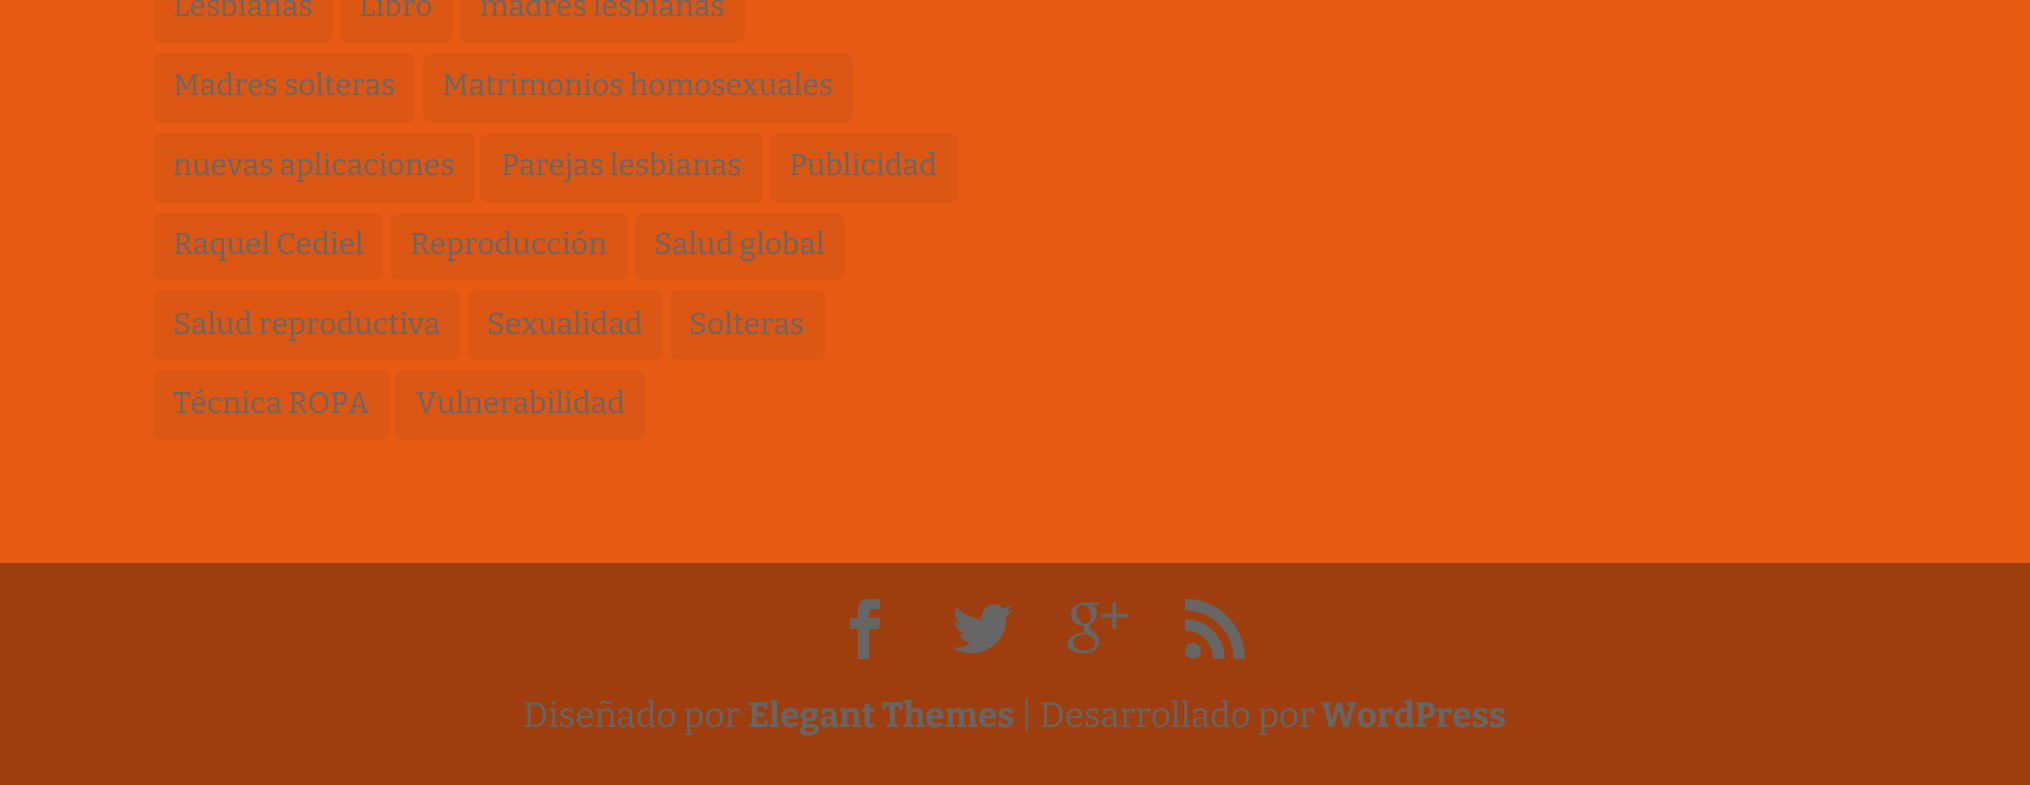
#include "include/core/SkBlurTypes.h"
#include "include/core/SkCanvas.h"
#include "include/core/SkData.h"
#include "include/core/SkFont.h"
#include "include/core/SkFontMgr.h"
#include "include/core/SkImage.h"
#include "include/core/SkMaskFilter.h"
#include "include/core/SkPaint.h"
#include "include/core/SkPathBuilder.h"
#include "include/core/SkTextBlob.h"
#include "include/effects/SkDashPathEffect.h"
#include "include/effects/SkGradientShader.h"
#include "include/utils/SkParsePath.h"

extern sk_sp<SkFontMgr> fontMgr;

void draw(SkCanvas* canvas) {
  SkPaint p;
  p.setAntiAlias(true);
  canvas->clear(SkColorSetRGB(232, 91, 21));
  p.setColor(SkColorSetRGB(220, 86, 20));
  canvas->drawRoundRect(SkRect::MakeLTRB(153, -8, 333, 43), 8, 8, p);
  canvas->drawRoundRect(SkRect::MakeLTRB(340, -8, 453, 43), 8, 8, p);
  canvas->drawRoundRect(SkRect::MakeLTRB(460, -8, 745, 43), 8, 8, p);
  canvas->drawRoundRect(SkRect::MakeLTRB(153, 53, 415, 123), 8, 8, p);
  canvas->drawRoundRect(SkRect::MakeLTRB(423, 53, 853, 123), 8, 8, p);
  canvas->drawRoundRect(SkRect::MakeLTRB(153, 133, 475, 203), 8, 8, p);
  canvas->drawRoundRect(SkRect::MakeLTRB(480, 133, 763, 203), 8, 8, p);
  canvas->drawRoundRect(SkRect::MakeLTRB(770, 133, 958, 203), 8, 8, p);
  canvas->drawRoundRect(SkRect::MakeLTRB(153, 213, 383, 280), 8, 8, p);
  canvas->drawRoundRect(SkRect::MakeLTRB(390, 213, 628, 280), 8, 8, p);
  canvas->drawRoundRect(SkRect::MakeLTRB(635, 213, 845, 280), 8, 8, p);
  canvas->drawRoundRect(SkRect::MakeLTRB(153, 290, 460, 360), 8, 8, p);
  canvas->drawRoundRect(SkRect::MakeLTRB(468, 290, 663, 360), 8, 8, p);
  canvas->drawRoundRect(SkRect::MakeLTRB(670, 290, 825, 360), 8, 8, p);
  canvas->drawRoundRect(SkRect::MakeLTRB(153, 370, 390, 440), 8, 8, p);
  canvas->drawRoundRect(SkRect::MakeLTRB(395, 370, 645, 440), 8, 8, p);
  p.setColor(SkColorSetRGB(158, 62, 14));
  canvas->drawRect(SkRect::MakeLTRB(0, 563, 2030, 785), p);
  p.setColor(SkColorSetRGB(102, 102, 102));
  canvas->drawPath(SkPathBuilder().moveTo(858, 659).lineTo(869, 659).lineTo(869, 629).lineTo(879, 629).lineTo(880, 618).lineTo(869, 618).cubicTo(869, 608, 869, 609, 880, 609).lineTo(880, 599).cubicTo(860, 599, 858, 598, 858, 618).lineTo(850, 618).lineTo(850, 629).lineTo(858, 629).close().detach(), p);
  canvas->drawImageRect(SkImages::DeferredFromEncodedData(SkData::MakeFromFileName("images/1.png")), SkRect::MakeLTRB(952, 604, 1013, 654), SkSamplingOptions());
  canvas->drawImageRect(SkImages::DeferredFromEncodedData(SkData::MakeFromFileName("images/2.png")), SkRect::MakeLTRB(1067, 602, 1128, 654), SkSamplingOptions());
  canvas->drawImageRect(SkImages::DeferredFromEncodedData(SkData::MakeFromFileName("images/3.png")), SkRect::MakeLTRB(1185, 598, 1245, 659), SkSamplingOptions());
  SkFont font1(fontMgr->matchFamilyStyle("Bitter", SkFontStyle::Normal()), 30);
  font1.setSubpixel(true);
  canvas->drawString("Lesbianas", 173, 16, font1, p);
  canvas->drawString("Libro", 359, 16, font1, p);
  canvas->drawString("madres lesbianas", 480, 16, font1, p);
  canvas->drawString("Madres solteras", 173, 95, font1, p);
  canvas->drawString("Matrimonios homosexuales", 442, 95, font1, p);
  canvas->drawString("nuevas aplicaciones", 173, 175, font1, p);
  canvas->drawString("Parejas lesbianas", 501, 175, font1, p);
  canvas->drawString("Publicidad", 789, 175, font1, p);
  canvas->drawString("Raquel Cediel", 173, 254, font1, p);
  canvas->drawString("Reproducción", 410, 254, font1, p);
  canvas->drawString("Salud global", 654, 254, font1, p);
  canvas->drawString("Salud reproductiva", 173, 334, font1, p);
  canvas->drawString("Sexualidad", 487, 334, font1, p);
  canvas->drawString("Solteras", 689, 334, font1, p);
  canvas->drawString("Técnica ROPA", 173, 413, font1, p);
  canvas->drawString("Vulnerabilidad", 416, 413, font1, p);
  SkFont font2(fontMgr->matchFamilyStyle("Bitter", SkFontStyle::Normal()), 35);
  font2.setSubpixel(true);
  canvas->drawString("Diseñado por", 523, 727, font2, p);
  SkFont font3(fontMgr->matchFamilyStyle("Bitter", SkFontStyle::Bold()), 35);
  font3.setSubpixel(true);
  canvas->drawString("Elegant Themes", 748, 727, font3, p);
  canvas->drawString("| Desarrollado por", 1021, 727, font2, p);
  canvas->drawString("WordPress", 1321, 727, font3, p);
}
